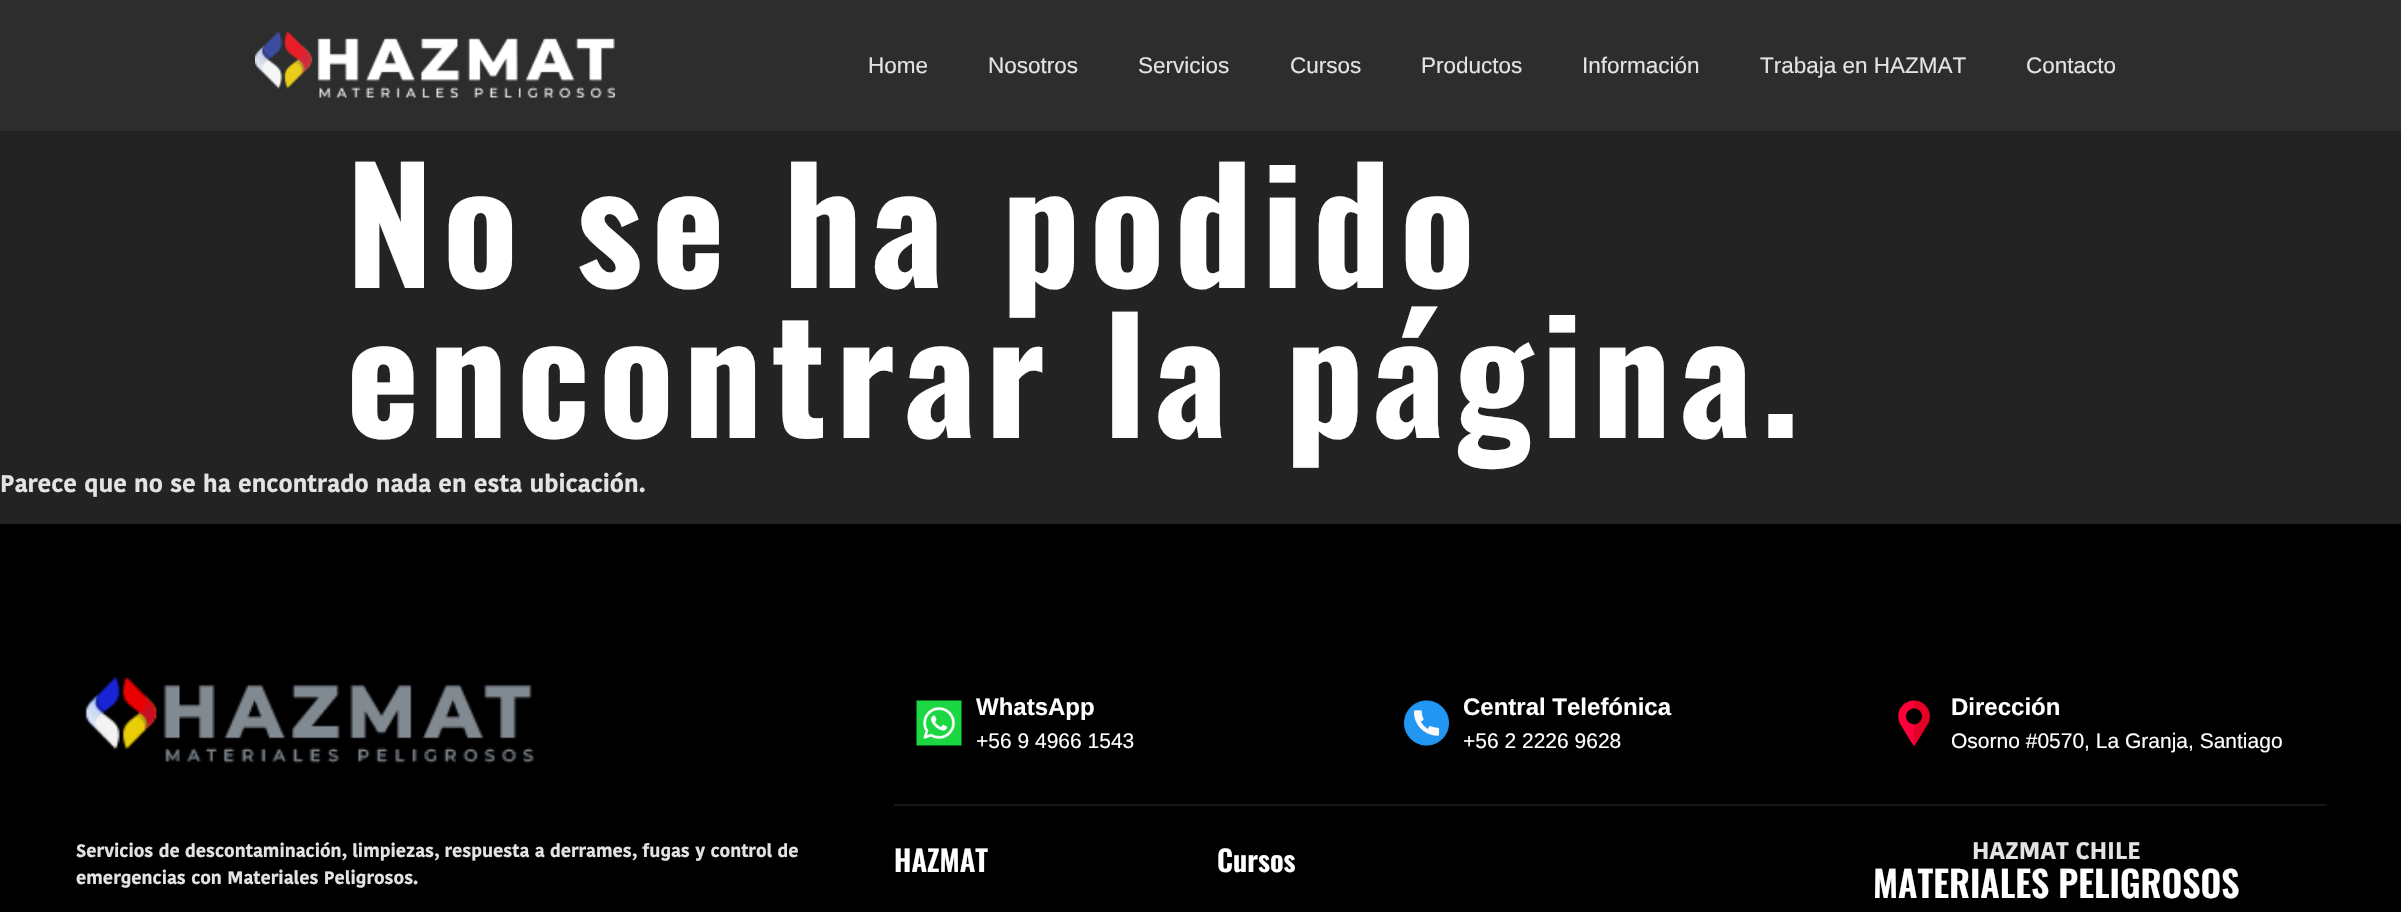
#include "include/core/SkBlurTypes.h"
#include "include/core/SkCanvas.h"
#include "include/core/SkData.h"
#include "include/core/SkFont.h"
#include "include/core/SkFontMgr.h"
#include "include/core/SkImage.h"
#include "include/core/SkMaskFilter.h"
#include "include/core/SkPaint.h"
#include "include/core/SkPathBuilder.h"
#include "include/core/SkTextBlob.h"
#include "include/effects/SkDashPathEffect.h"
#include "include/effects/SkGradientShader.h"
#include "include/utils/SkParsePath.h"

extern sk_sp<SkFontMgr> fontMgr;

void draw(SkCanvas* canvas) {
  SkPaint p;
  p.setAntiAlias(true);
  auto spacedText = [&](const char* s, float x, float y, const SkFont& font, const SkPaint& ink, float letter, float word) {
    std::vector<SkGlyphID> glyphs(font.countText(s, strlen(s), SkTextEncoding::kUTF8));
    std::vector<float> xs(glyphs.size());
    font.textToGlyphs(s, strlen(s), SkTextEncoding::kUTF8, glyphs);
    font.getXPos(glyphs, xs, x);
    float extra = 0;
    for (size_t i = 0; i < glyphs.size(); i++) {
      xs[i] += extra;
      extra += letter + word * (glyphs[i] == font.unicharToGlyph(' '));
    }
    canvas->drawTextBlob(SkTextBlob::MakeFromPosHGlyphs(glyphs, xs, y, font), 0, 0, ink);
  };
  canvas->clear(SkColorSetRGB(35, 35, 35));
  p.setColor(SkColorSetRGB(45, 45, 45));
  canvas->drawRect(SkRect::MakeLTRB(0, 0, 2401, 131), p);
  canvas->drawImageRect(SkImages::DeferredFromEncodedData(SkData::MakeFromFileName("images/1.png")), SkRect::MakeLTRB(255, 31, 615, 98), SkSamplingOptions());
  p.setColor(SK_ColorBLACK);
  canvas->drawRect(SkRect::MakeLTRB(0, 524, 2401, 912), p);
  canvas->drawImageRect(SkImages::DeferredFromEncodedData(SkData::MakeFromFileName("images/2.png")), SkRect::MakeLTRB(85, 677, 534, 764), SkSamplingOptions());
  canvas->drawImageRect(SkImages::DeferredFromEncodedData(SkData::MakeFromFileName("images/3.png")), SkRect::MakeLTRB(916, 700, 962, 746), SkSamplingOptions());
  canvas->drawImageRect(SkImages::DeferredFromEncodedData(SkData::MakeFromFileName("images/4.png")), SkRect::MakeLTRB(1404, 700, 1449, 746), SkSamplingOptions());
  canvas->drawImageRect(SkImages::DeferredFromEncodedData(SkData::MakeFromFileName("images/5.png")), SkRect::MakeLTRB(1898, 700, 1931, 746), SkSamplingOptions());
  p.setColor(SkColorSetRGB(23, 23, 23));
  canvas->drawRect(SkRect::MakeLTRB(894, 804, 2327, 806), p);
  SkFont font1(fontMgr->matchFamilyStyle("Liberation Sans", SkFontStyle::Normal()), 22.5f);
  font1.setSubpixel(true);
  p.setColor(SkColorSetRGB(227, 227, 227));
  canvas->drawString("Home", 868, 73, font1, p);
  canvas->drawString("Nosotros", 988, 73, font1, p);
  canvas->drawString("Servicios", 1138, 73, font1, p);
  canvas->drawString("Cursos", 1290, 73, font1, p);
  canvas->drawString("Productos", 1421, 73, font1, p);
  canvas->drawString("Información", 1582, 73, font1, p);
  canvas->drawString("Trabaja en HAZMAT", 1760, 73, font1, p);
  canvas->drawString("Contacto", 2026, 73, font1, p);
  SkFont font2(fontMgr->matchFamilyStyle("Oswald", SkFontStyle::Bold()), 156);
  font2.setSubpixel(true);
  p.setColor(SK_ColorWHITE);
  spacedText("No se ha podido", 346, 288, font2, p, 9.15f, 0);
  spacedText("encontrar la página.", 346, 438, font2, p, 9.15f, 0);
  SkFont font3(fontMgr->matchFamilyStyle("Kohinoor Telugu", SkFontStyle::Bold()), 24);
  font3.setSubpixel(true);
  p.setColor(SkColorSetRGB(227, 227, 227));
  canvas->drawString("Parece que no se ha encontrado nada en esta ubicación.", 0, 492, font3, p);
  SkFont font4(fontMgr->matchFamilyStyle("Kohinoor Telugu", SkFontStyle::Bold()), 18);
  font4.setSubpixel(true);
  canvas->drawString("Servicios de descontaminación, limpiezas, respuesta a derrames, fugas y control de", 76, 857, font4, p);
  canvas->drawString("emergencias con Materiales Peligrosos.", 76, 884, font4, p);
  SkFont font5(fontMgr->matchFamilyStyle("Liberation Sans", SkFontStyle::Bold()), 24);
  font5.setSubpixel(true);
  p.setColor(SK_ColorWHITE);
  canvas->drawString("WhatsApp", 976, 715, font5, p);
  SkFont font6(fontMgr->matchFamilyStyle("Liberation Sans", SkFontStyle::Normal()), 21);
  font6.setSubpixel(true);
  canvas->drawString("+56 9 4966 1543", 976, 748, font6, p);
  canvas->drawString("Central Telefónica", 1463, 715, font5, p);
  canvas->drawString("+56 2 2226 9628", 1463, 748, font6, p);
  canvas->drawString("Dirección", 1951, 715, font5, p);
  canvas->drawString("Osorno #0570, La Granja, Santiago", 1951, 748, font6, p);
  SkFont font7(fontMgr->matchFamilyStyle("Oswald", SkFontStyle(600, SkFontStyle::kNormal_Width, SkFontStyle::kUpright_Slant)), 29);
  font7.setSubpixel(true);
  canvas->drawString("HAZMAT", 894, 872, font7, p);
  canvas->drawString("Cursos", 1217, 872, font7, p);
  p.setColor(SkColorSetRGB(227, 227, 227));
  canvas->drawString("HAZMAT CHILE", 1972, 859, font3, p);
  SkFont font8(fontMgr->matchFamilyStyle("Oswald", SkFontStyle(600, SkFontStyle::kNormal_Width, SkFontStyle::kUpright_Slant)), 36);
  font8.setSubpixel(true);
  p.setColor(SK_ColorWHITE);
  canvas->drawString("MATERIALES PELIGROSOS", 1873, 898, font8, p);
}
